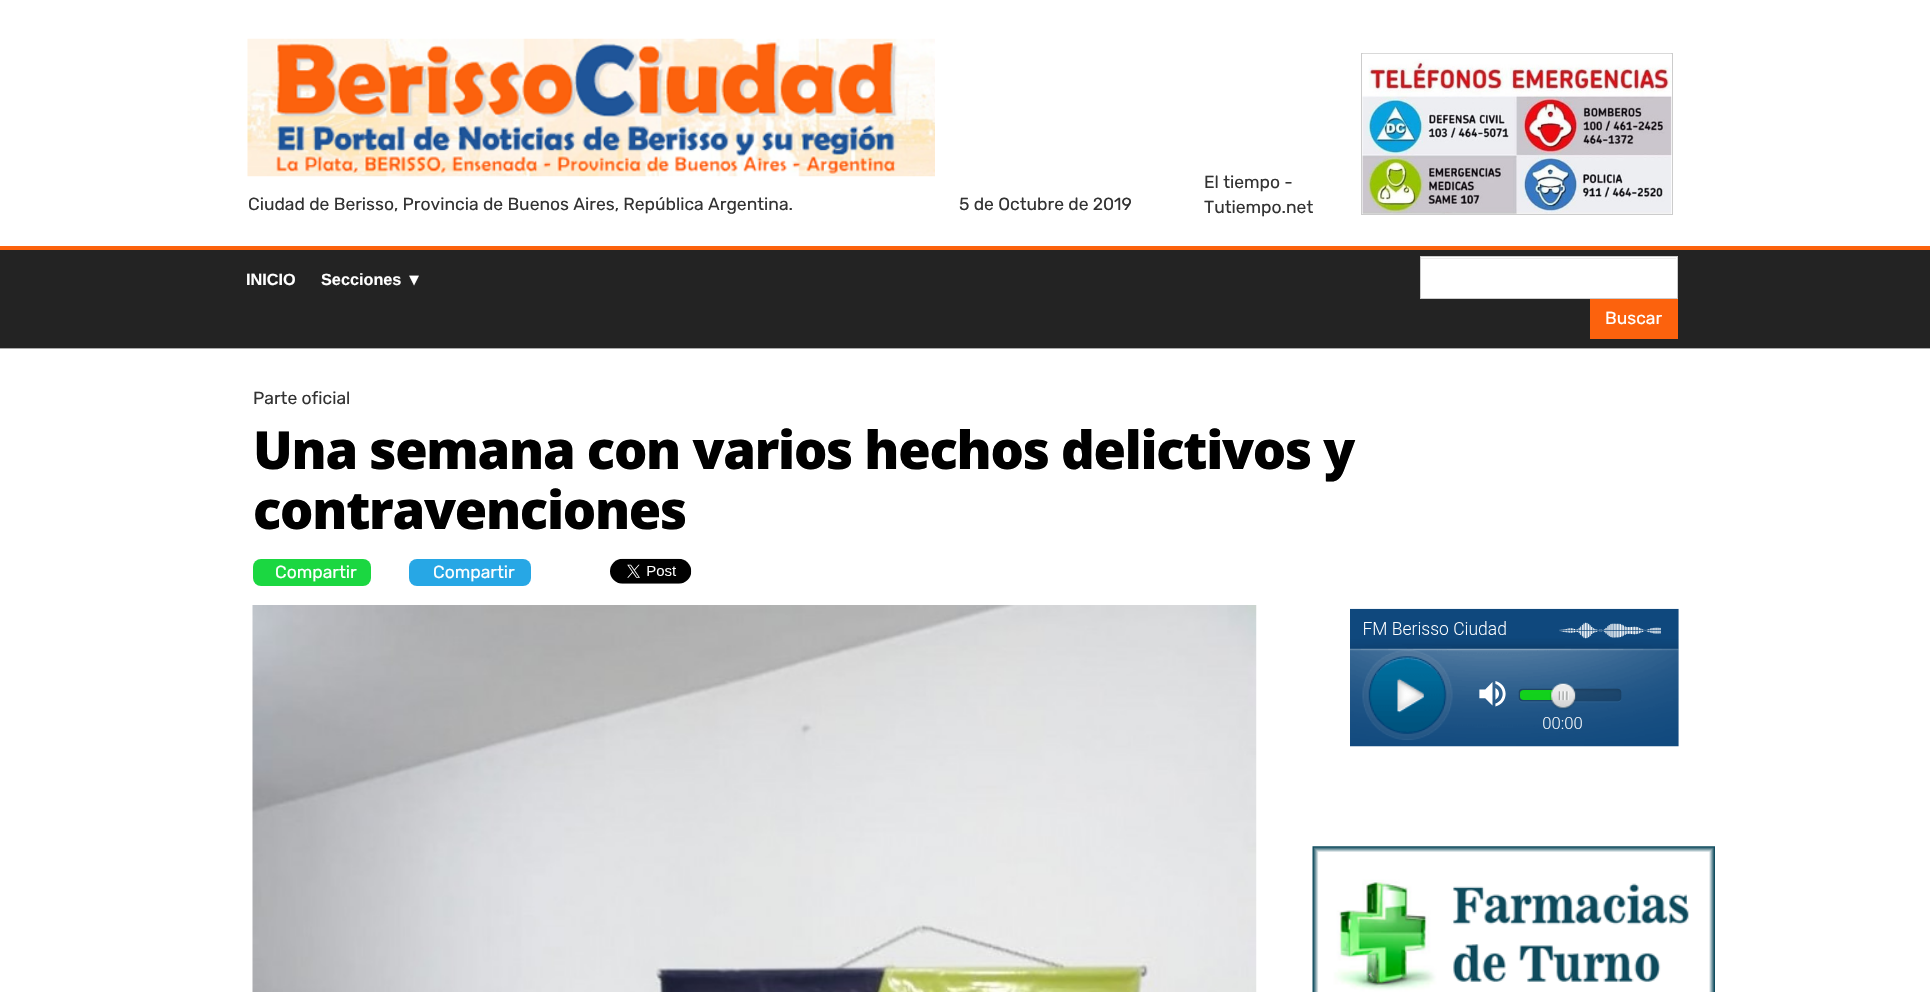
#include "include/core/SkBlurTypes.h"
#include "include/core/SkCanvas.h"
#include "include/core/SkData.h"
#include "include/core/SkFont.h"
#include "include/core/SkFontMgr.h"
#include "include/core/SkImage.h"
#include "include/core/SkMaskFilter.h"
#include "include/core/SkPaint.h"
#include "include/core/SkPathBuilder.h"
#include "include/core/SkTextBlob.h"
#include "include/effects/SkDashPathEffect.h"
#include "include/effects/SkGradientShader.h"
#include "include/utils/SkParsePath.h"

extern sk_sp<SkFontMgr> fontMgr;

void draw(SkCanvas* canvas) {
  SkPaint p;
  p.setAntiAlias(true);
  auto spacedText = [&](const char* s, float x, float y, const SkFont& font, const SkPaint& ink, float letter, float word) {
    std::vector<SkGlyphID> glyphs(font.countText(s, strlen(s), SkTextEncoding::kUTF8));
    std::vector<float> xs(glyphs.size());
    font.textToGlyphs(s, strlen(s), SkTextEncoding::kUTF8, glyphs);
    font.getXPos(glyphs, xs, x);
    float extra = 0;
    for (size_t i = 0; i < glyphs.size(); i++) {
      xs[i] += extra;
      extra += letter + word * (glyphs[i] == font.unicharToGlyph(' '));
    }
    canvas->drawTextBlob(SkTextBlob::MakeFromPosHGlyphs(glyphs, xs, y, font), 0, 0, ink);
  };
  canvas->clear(SK_ColorWHITE);
  p.setColor(SkColorSetRGB(252, 98, 13));
  canvas->drawRect(SkRect::MakeLTRB(0, 246, 1930, 250), p);
  canvas->drawImageRect(SkImages::DeferredFromEncodedData(SkData::MakeFromFileName("images/1.png")), SkRect::MakeLTRB(247, 38, 935, 177), SkSamplingOptions());
  p.setStyle(SkPaint::kStroke_Style);
  p.setStrokeWidth(1);
  p.setColor(SkColorSetRGB(204, 204, 204));
  canvas->drawRect(SkRect::MakeLTRB(1361.5f, 53.5f, 1672.5f, 214.5f), p);
  canvas->drawImageRect(SkImages::DeferredFromEncodedData(SkData::MakeFromFileName("images/2.png")), SkRect::MakeLTRB(1362, 53, 1672, 214), SkSamplingOptions());
  p.setStyle(SkPaint::kFill_Style);
  p.setColor(SkColorSetRGB(35, 35, 35));
  canvas->drawRect(SkRect::MakeLTRB(0, 250, 1930, 348), p);
  p.setColor(SkColorSetRGB(171, 171, 171));
  canvas->drawRect(SkRect::MakeLTRB(0, 348, 1930, 349), p);
  p.setColor(SK_ColorWHITE);
  canvas->drawRect(SkRect::MakeLTRB(1421, 257, 1677, 298), p);
  p.setColor(SkColorSetRGB(236, 236, 236));
  canvas->drawRect(SkRect::MakeLTRB(1421, 258, 1676, 259), p);
  p.setStyle(SkPaint::kStroke_Style);
  p.setColor(SkColorSetRGB(204, 204, 204));
  canvas->drawRect(SkRect::MakeLTRB(1420.5f, 256.5f, 1677.5f, 298.5f), p);
  p.setStyle(SkPaint::kFill_Style);
  p.setColor(SkColorSetRGB(252, 98, 13));
  canvas->drawRect(SkRect::MakeLTRB(1590, 299, 1678, 339), p);
  p.setColor(SkColorSetRGB(27, 215, 65));
  canvas->drawRoundRect(SkRect::MakeLTRB(253, 559, 371, 586), 8, 8, p);
  p.setColor(SkColorSetRGB(39, 167, 229));
  canvas->drawRoundRect(SkRect::MakeLTRB(409, 559, 531, 586), 8, 8, p);
  canvas->drawImageRect(SkImages::DeferredFromEncodedData(SkData::MakeFromFileName("images/3.png")), SkRect::MakeLTRB(610, 558, 692, 584), SkSamplingOptions());
  canvas->drawImageRect(SkImages::DeferredFromEncodedData(SkData::MakeFromFileName("images/4.png")), SkRect::MakeLTRB(252, 605, 1257, 992), SkSamplingOptions());
  canvas->drawImageRect(SkImages::DeferredFromEncodedData(SkData::MakeFromFileName("images/5.png")), SkRect::MakeLTRB(1350, 608, 1679, 747), SkSamplingOptions());
  canvas->drawImageRect(SkImages::DeferredFromEncodedData(SkData::MakeFromFileName("images/6.png")), SkRect::MakeLTRB(1312, 846, 1715, 992), SkSamplingOptions());
  SkFont font1(fontMgr->matchFamilyStyle("Rubik", SkFontStyle::Normal()), 17.5f);
  font1.setSubpixel(true);
  p.setColor(SkColorSetRGB(51, 51, 51));
  canvas->drawString("Ciudad de Berisso, Provincia de Buenos Aires, República Argentina.", 248, 210, font1, p);
  canvas->drawString("5 de Octubre de 2019", 959, 210, font1, p);
  canvas->drawString("El tiempo -", 1204, 188, font1, p);
  canvas->drawString("Tutiempo.net", 1204, 213, font1, p);
  SkFont font2(fontMgr->matchFamilyStyle("Liberation Sans", SkFontStyle::Bold()), 16.25f);
  font2.setSubpixel(true);
  p.setColor(SK_ColorWHITE);
  canvas->drawString("INICIO", 246, 285, font2, p);
  canvas->drawString("Secciones ▼", 321, 285, font2, p);
  canvas->drawString("Buscar", 1605, 324, font1, p);
  p.setColor(SkColorSetRGB(51, 51, 51));
  canvas->drawString("Parte oficial", 253, 404, font1, p);
  SkFont font3(fontMgr->matchFamilyStyle("Open Sans", SkFontStyle(800, SkFontStyle::kNormal_Width, SkFontStyle::kUpright_Slant)), 52.5f);
  font3.setSubpixel(true);
  p.setColor(SK_ColorBLACK);
  spacedText("Una semana con varios hechos delictivos y", 253, 469, font3, p, -1.25f, 0);
  spacedText("contravenciones", 253, 529, font3, p, -1.25f, 0);
  p.setColor(SK_ColorWHITE);
  canvas->drawString("Compartir", 275, 578, font1, p);
  canvas->drawString("Compartir", 433, 578, font1, p);
}
